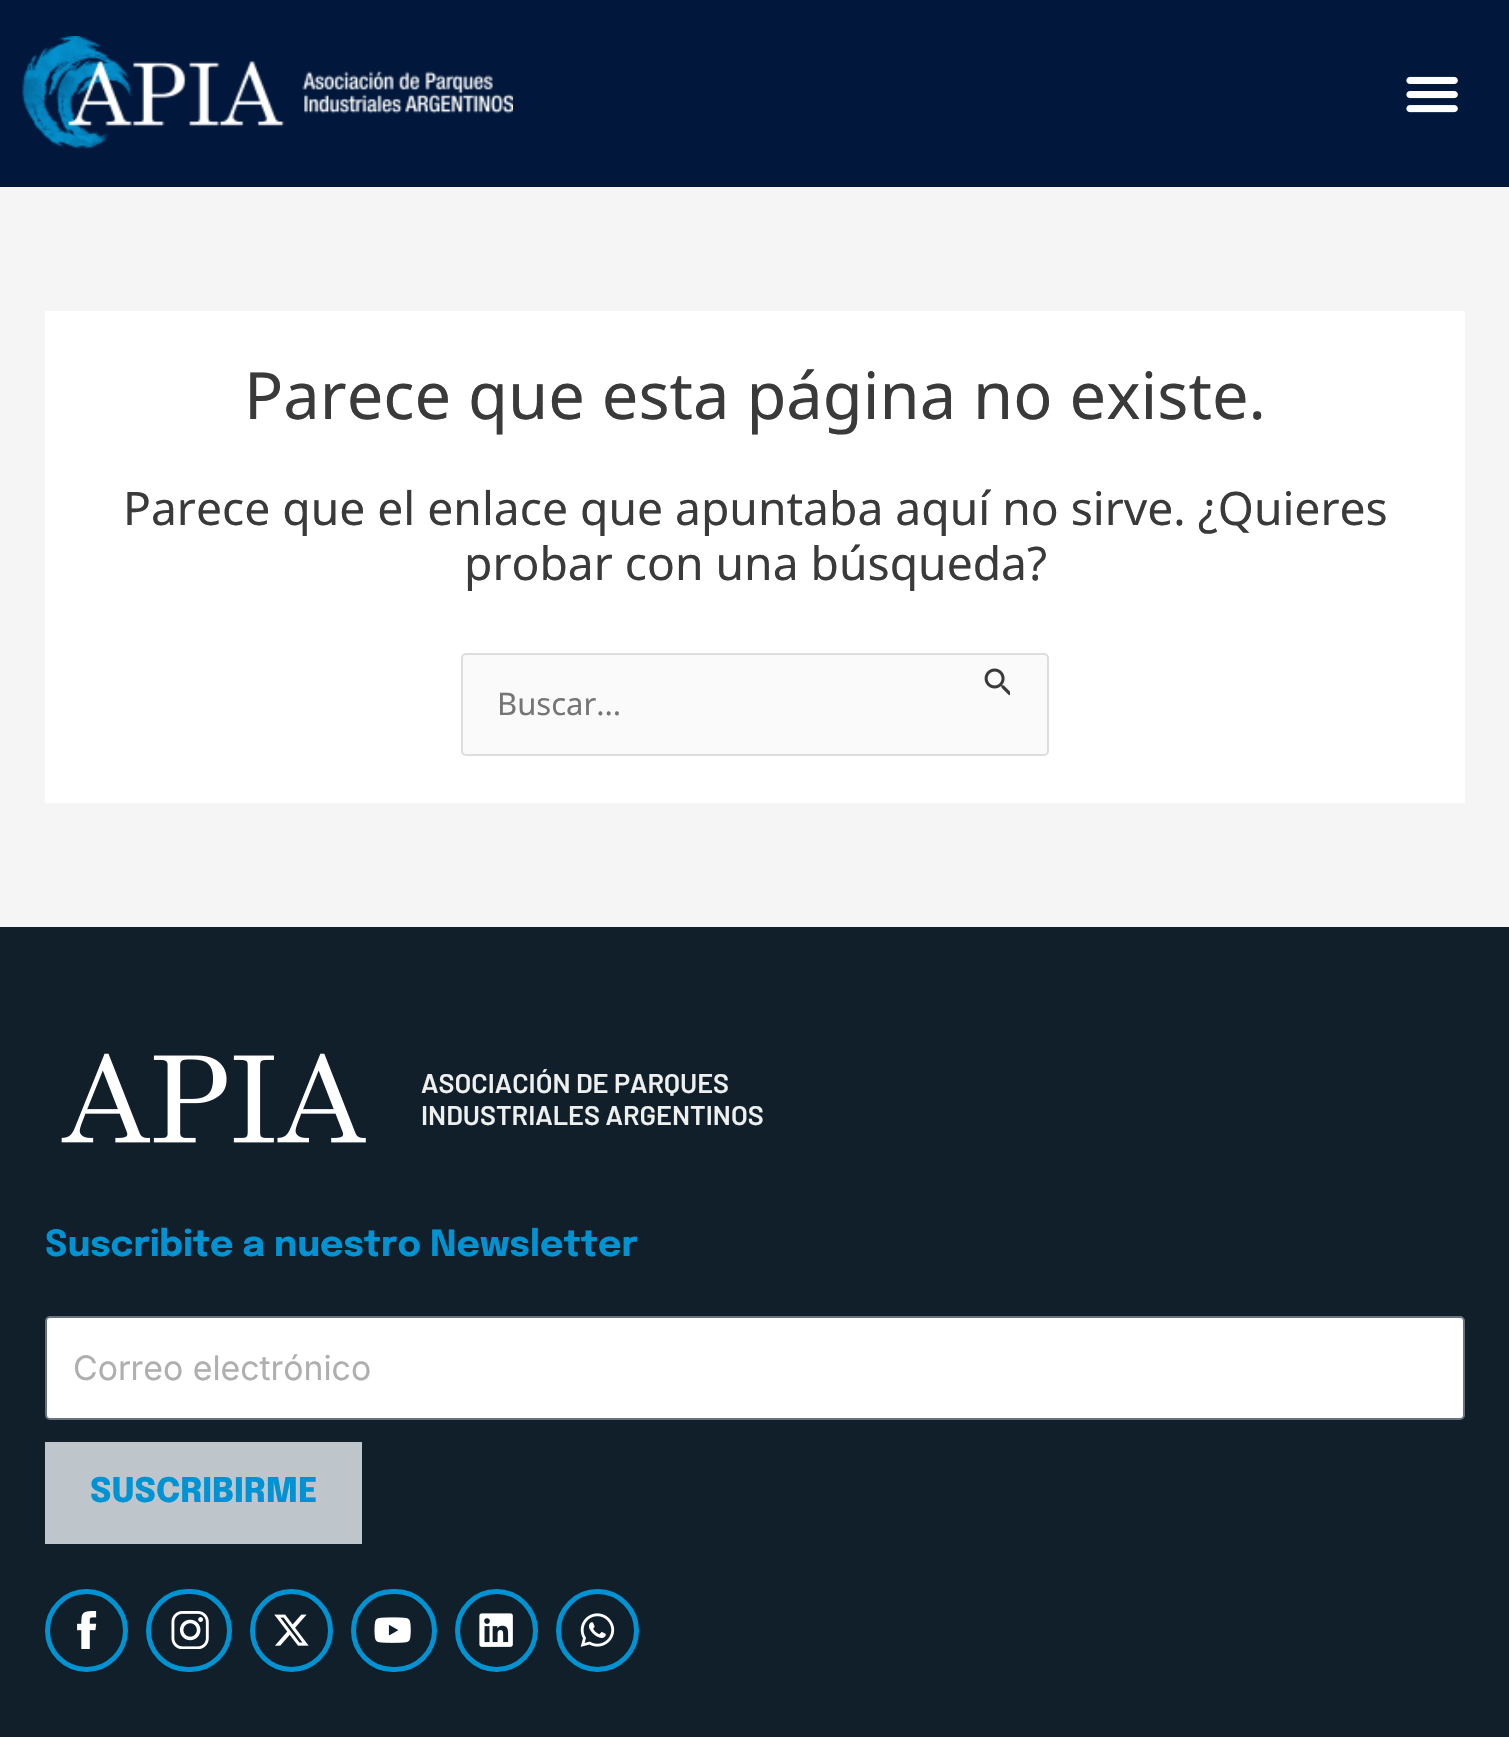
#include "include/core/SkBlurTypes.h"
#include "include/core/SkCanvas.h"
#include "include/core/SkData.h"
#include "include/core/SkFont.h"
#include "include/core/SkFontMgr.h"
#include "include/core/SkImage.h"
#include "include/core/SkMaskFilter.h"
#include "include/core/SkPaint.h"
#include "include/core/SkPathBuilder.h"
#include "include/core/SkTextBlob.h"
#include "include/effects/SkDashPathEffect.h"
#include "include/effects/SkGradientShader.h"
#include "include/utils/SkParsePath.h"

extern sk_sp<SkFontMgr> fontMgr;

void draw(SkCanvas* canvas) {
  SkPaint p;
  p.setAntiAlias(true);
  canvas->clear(SkColorSetRGB(245, 245, 245));
  p.setColor(SkColorSetRGB(1, 24, 60));
  canvas->drawRect(SkRect::MakeLTRB(0, 0, 1509, 187), p);
  canvas->drawImageRect(SkImages::DeferredFromEncodedData(SkData::MakeFromFileName("images/1.png")), SkRect::MakeLTRB(22, 36, 513, 150), SkSamplingOptions());
  canvas->drawImageRect(SkImages::DeferredFromEncodedData(SkData::MakeFromFileName("images/2.png")), SkRect::MakeLTRB(1406, 76, 1458, 113), SkSamplingOptions());
  p.setColor(SK_ColorWHITE);
  canvas->drawRect(SkRect::MakeLTRB(45, 311, 1465, 803), p);
  p.setColor(SkColorSetRGB(250, 250, 250));
  canvas->drawRoundRect(SkRect::MakeLTRB(462, 654, 1048, 755), 4, 4, p);
  p.setStyle(SkPaint::kStroke_Style);
  p.setStrokeWidth(2);
  p.setColor(SkColorSetRGB(221, 221, 221));
  canvas->drawRoundRect(SkRect::MakeLTRB(462, 654, 1048, 755), 4, 4, p);
  canvas->drawImageRect(SkImages::DeferredFromEncodedData(SkData::MakeFromFileName("images/3.png")), SkRect::MakeLTRB(984, 668, 1010, 696), SkSamplingOptions());
  p.setStyle(SkPaint::kFill_Style);
  p.setColor(SkColorSetRGB(16, 31, 42));
  canvas->drawRect(SkRect::MakeLTRB(0, 927, 1509, 1737), p);
  canvas->drawImageRect(SkImages::DeferredFromEncodedData(SkData::MakeFromFileName("images/4.png")), SkRect::MakeLTRB(61, 1053, 366, 1143), SkSamplingOptions());
  p.setColor(SK_ColorWHITE);
  canvas->drawRoundRect(SkRect::MakeLTRB(46, 1317, 1464, 1419), 4, 4, p);
  p.setStyle(SkPaint::kStroke_Style);
  p.setColor(SkColorSetRGB(105, 114, 125));
  canvas->drawRoundRect(SkRect::MakeLTRB(46, 1317, 1464, 1419), 4, 4, p);
  p.setStyle(SkPaint::kFill_Style);
  p.setColor(SkColorSetRGB(190, 198, 204));
  canvas->drawRect(SkRect::MakeLTRB(45, 1442, 362, 1544), p);
  p.setStyle(SkPaint::kStroke_Style);
  p.setStrokeWidth(5);
  p.setColor(SkColorSetRGB(0, 147, 211));
  canvas->drawCircle(86.5f, 1630.5f, 39, p);
  canvas->drawImageRect(SkImages::DeferredFromEncodedData(SkData::MakeFromFileName("images/5.png")), SkRect::MakeLTRB(77, 1611, 97, 1649), SkSamplingOptions());
  canvas->drawRoundRect(SkRect::MakeLTRB(148.5f, 1591.5f, 229.5f, 1669.5f), 39, 39, p);
  canvas->drawImageRect(SkImages::DeferredFromEncodedData(SkData::MakeFromFileName("images/6.png")), SkRect::MakeLTRB(171, 1611, 209, 1649), SkSamplingOptions());
  canvas->drawCircle(291.5f, 1630.5f, 39, p);
  canvas->drawImageRect(SkImages::DeferredFromEncodedData(SkData::MakeFromFileName("images/7.png")), SkRect::MakeLTRB(274, 1614, 309, 1646), SkSamplingOptions());
  canvas->drawRoundRect(SkRect::MakeLTRB(353.5f, 1591.5f, 434.5f, 1669.5f), 39, 39, p);
  canvas->drawImageRect(SkImages::DeferredFromEncodedData(SkData::MakeFromFileName("images/8.png")), SkRect::MakeLTRB(374, 1617, 411, 1643), SkSamplingOptions());
  canvas->drawCircle(496.5f, 1630.5f, 39, p);
  canvas->drawImageRect(SkImages::DeferredFromEncodedData(SkData::MakeFromFileName("images/9.png")), SkRect::MakeLTRB(479, 1613, 513, 1647), SkSamplingOptions());
  canvas->drawCircle(597.5f, 1630.5f, 39, p);
  canvas->drawImageRect(SkImages::DeferredFromEncodedData(SkData::MakeFromFileName("images/10.png")), SkRect::MakeLTRB(580, 1613, 615, 1647), SkSamplingOptions());
  SkFont font1(fontMgr->matchFamilyStyle("Noto Sans", SkFontStyle::Normal()), 65);
  font1.setSubpixel(true);
  p.setStyle(SkPaint::kFill_Style);
  p.setColor(SkColorSetRGB(58, 58, 58));
  canvas->drawString("Parece que esta página no existe.", 244, 419, font1, p);
  SkFont font2(fontMgr->matchFamilyStyle("Noto Sans", SkFontStyle::Normal()), 46.2f);
  font2.setSubpixel(true);
  canvas->drawString("Parece que el enlace que apuntaba aquí no sirve. ¿Quieres", 123, 525, font2, p);
  canvas->drawString("probar con una búsqueda?", 464, 580, font2, p);
  SkFont font3(fontMgr->matchFamilyStyle("Noto Sans", SkFontStyle::Normal()), 31);
  font3.setSubpixel(true);
  p.setColor(SkColorSetRGB(117, 117, 117));
  canvas->drawString("Buscar...", 497, 715, font3, p);
  SkFont font4(fontMgr->matchFamilyStyle("Barlow", SkFontStyle(600, SkFontStyle::kNormal_Width, SkFontStyle::kUpright_Slant)), 27);
  font4.setSubpixel(true);
  p.setColor(SkColorSetRGB(238, 239, 239));
  canvas->drawString("ASOCIACIÓN DE PARQUES", 421, 1093, font4, p);
  canvas->drawString("INDUSTRIALES ARGENTINOS", 421, 1125, font4, p);
  SkFont font5(fontMgr->matchFamilyStyle("Epilogue", SkFontStyle::Bold()), 36);
  font5.setSubpixel(true);
  p.setColor(SkColorSetRGB(0, 147, 211));
  canvas->drawString("Suscribite a nuestro Newsletter", 45, 1256, font5, p);
  SkFont font6(fontMgr->matchFamilyStyle("Inter", SkFontStyle::Normal()), 33.75f);
  font6.setSubpixel(true);
  p.setColor(SkColorSetRGB(175, 175, 175));
  canvas->drawString("Correo electrónico", 73, 1380, font6, p);
  SkFont font7(fontMgr->matchFamilyStyle("Epilogue", SkFontStyle(800, SkFontStyle::kNormal_Width, SkFontStyle::kUpright_Slant)), 33.75f);
  font7.setSubpixel(true);
  p.setColor(SkColorSetRGB(0, 147, 211));
  canvas->drawString("SUSCRIBIRME", 90, 1502, font7, p);
}
